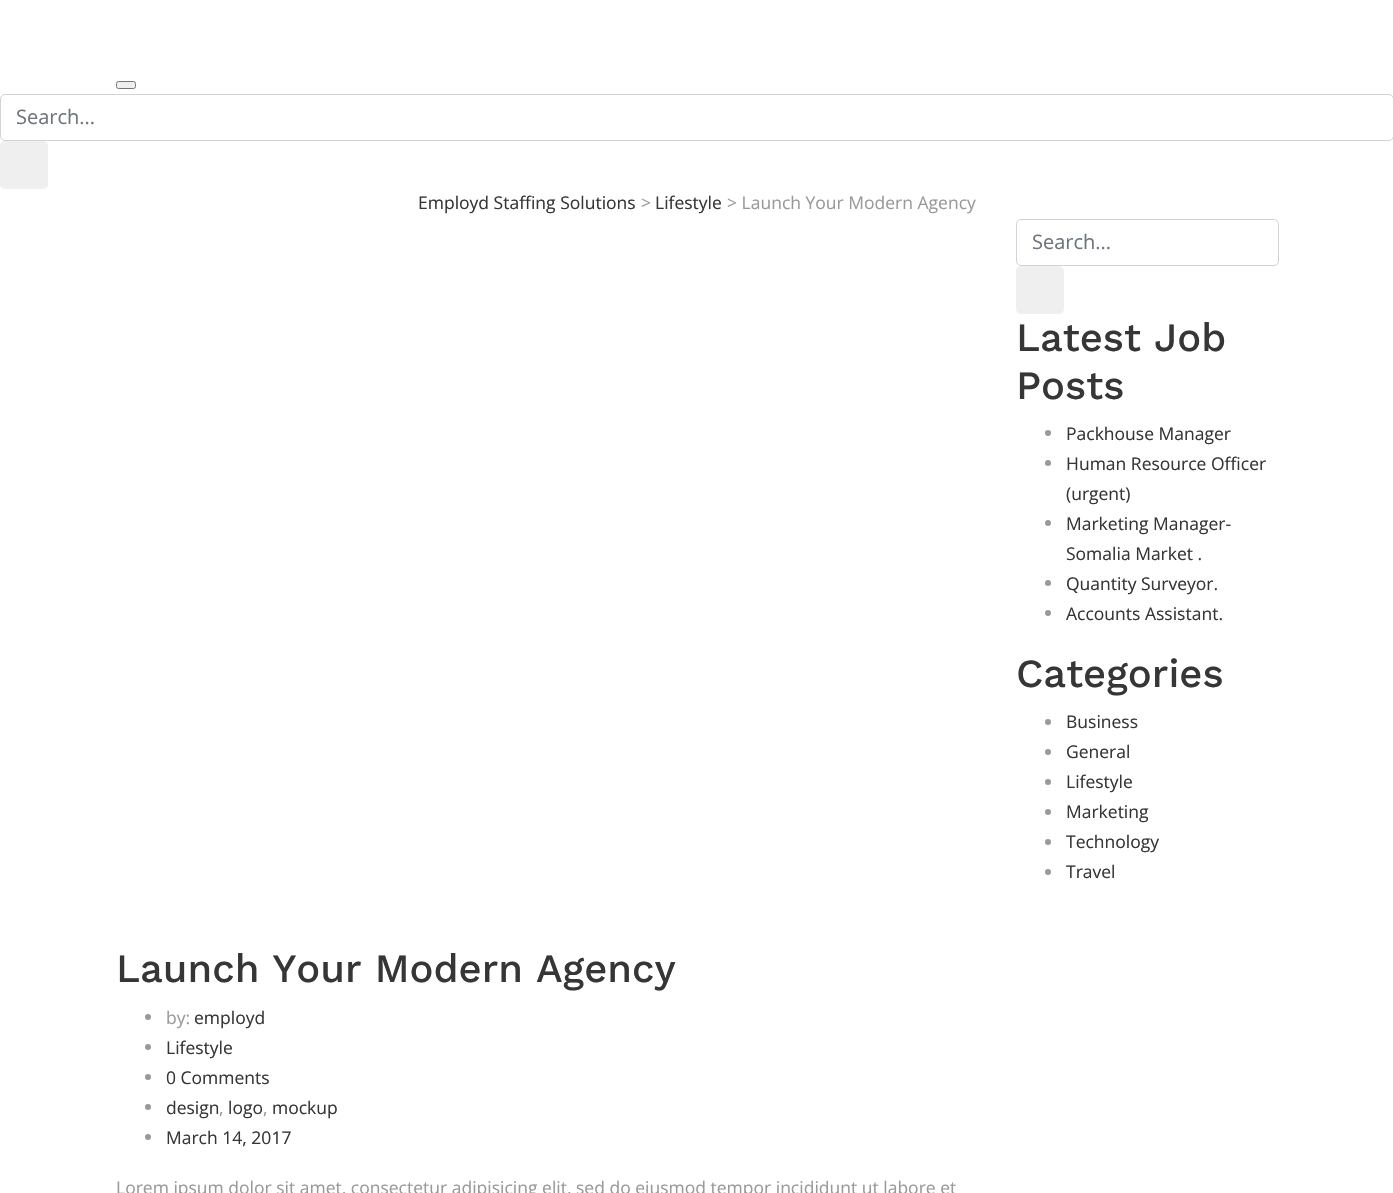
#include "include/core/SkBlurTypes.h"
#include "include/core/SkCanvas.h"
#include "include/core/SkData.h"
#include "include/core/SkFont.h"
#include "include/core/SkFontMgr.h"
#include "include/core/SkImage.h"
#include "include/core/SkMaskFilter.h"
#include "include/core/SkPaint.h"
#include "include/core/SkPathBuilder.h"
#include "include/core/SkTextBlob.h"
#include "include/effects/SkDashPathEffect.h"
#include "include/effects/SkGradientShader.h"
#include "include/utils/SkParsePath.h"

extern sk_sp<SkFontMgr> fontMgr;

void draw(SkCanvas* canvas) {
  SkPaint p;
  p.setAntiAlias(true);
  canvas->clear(SK_ColorWHITE);
  p.setColor(SkColorSetRGB(239, 239, 239));
  canvas->drawRoundRect(SkRect::MakeLTRB(116.5f, 81.5f, 135.5f, 88.5f), 2, 2, p);
  p.setStyle(SkPaint::kStroke_Style);
  p.setStrokeWidth(1);
  p.setColor(SkColorSetRGB(118, 118, 118));
  canvas->drawRoundRect(SkRect::MakeLTRB(116.5f, 81.5f, 135.5f, 88.5f), 2, 2, p);
  p.setColor(SkColorSetRGB(206, 212, 218));
  canvas->drawRoundRect(SkRect::MakeLTRB(0.5f, 94.5f, 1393.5f, 140.5f), 4.5f, 4.5f, p);
  p.setStyle(SkPaint::kFill_Style);
  p.setColor(SkColorSetRGB(239, 239, 239));
  canvas->drawRoundRect(SkRect::MakeLTRB(0, 141, 48, 189), 5, 5, p);
  p.setStyle(SkPaint::kStroke_Style);
  p.setColor(SkColorSetRGB(206, 212, 218));
  canvas->drawRoundRect(SkRect::MakeLTRB(1016.5f, 219.5f, 1278.5f, 265.5f), 4.5f, 4.5f, p);
  p.setStyle(SkPaint::kFill_Style);
  p.setColor(SkColorSetRGB(239, 239, 239));
  canvas->drawRoundRect(SkRect::MakeLTRB(1016, 266, 1064, 314), 5, 5, p);
  p.setColor(SkColorSetRGB(153, 153, 153));
  canvas->drawCircle(1048, 433, 3, p);
  canvas->drawCircle(1048, 463, 3, p);
  canvas->drawCircle(1048, 523, 3, p);
  canvas->drawCircle(1048, 583, 3, p);
  canvas->drawCircle(1048, 613, 3, p);
  canvas->drawCircle(1048, 722, 3, p);
  canvas->drawCircle(1048, 752, 3, p);
  canvas->drawCircle(1048, 782, 3, p);
  canvas->drawCircle(1048, 812, 3, p);
  canvas->drawCircle(1048, 842, 3, p);
  canvas->drawCircle(1048, 872, 3, p);
  canvas->drawCircle(148, 1017, 3, p);
  canvas->drawCircle(148, 1047, 3, p);
  canvas->drawCircle(148, 1077, 3, p);
  canvas->drawCircle(148, 1107, 3, p);
  canvas->drawCircle(148, 1137, 3, p);
  SkFont font1(fontMgr->matchFamilyStyle("Open Sans", SkFontStyle::Normal()), 20);
  font1.setSubpixel(true);
  p.setColor(SkColorSetRGB(108, 117, 125));
  canvas->drawString("Search...", 16, 124, font1, p);
  SkFont font2(fontMgr->matchFamilyStyle("Open Sans", SkFontStyle::Normal()), 17.5f);
  font2.setSubpixel(true);
  p.setColor(SkColorSetRGB(54, 54, 54));
  canvas->drawString("Employd Staffing Solutions", 418, 209, font2, p);
  p.setColor(SkColorSetRGB(153, 153, 153));
  canvas->drawString(">", 641, 209, font2, p);
  p.setColor(SkColorSetRGB(54, 54, 54));
  canvas->drawString("Lifestyle", 655, 209, font2, p);
  p.setColor(SkColorSetRGB(153, 153, 153));
  canvas->drawString("> Launch Your Modern Agency", 727, 209, font2, p);
  p.setColor(SkColorSetRGB(108, 117, 125));
  canvas->drawString("Search...", 1032, 249, font1, p);
  SkFont font3(fontMgr->matchFamilyStyle("Work Sans", SkFontStyle(500, SkFontStyle::kNormal_Width, SkFontStyle::kUpright_Slant)), 40);
  font3.setSubpixel(true);
  p.setColor(SkColorSetRGB(54, 54, 54));
  canvas->drawString("Latest Job", 1016, 351, font3, p);
  canvas->drawString("Posts", 1016, 399, font3, p);
  canvas->drawString("Packhouse Manager", 1066, 440, font2, p);
  canvas->drawString("Human Resource Officer", 1066, 470, font2, p);
  canvas->drawString("(urgent)", 1066, 500, font2, p);
  canvas->drawString("Marketing Manager-", 1066, 530, font2, p);
  canvas->drawString("Somalia Market .", 1066, 560, font2, p);
  canvas->drawString("Quantity Surveyor.", 1066, 590, font2, p);
  canvas->drawString("Accounts Assistant.", 1066, 620, font2, p);
  canvas->drawString("Categories", 1016, 687, font3, p);
  canvas->drawString("Business", 1066, 728, font2, p);
  canvas->drawString("General", 1066, 758, font2, p);
  canvas->drawString("Lifestyle", 1066, 788, font2, p);
  canvas->drawString("Marketing", 1066, 818, font2, p);
  canvas->drawString("Technology", 1066, 848, font2, p);
  canvas->drawString("Travel", 1066, 878, font2, p);
  canvas->drawString("Launch Your Modern Agency", 116, 982, font3, p);
  p.setColor(SkColorSetRGB(153, 153, 153));
  canvas->drawString("by:", 166, 1024, font2, p);
  p.setColor(SkColorSetRGB(54, 54, 54));
  canvas->drawString("employd", 194, 1024, font2, p);
  canvas->drawString("Lifestyle", 166, 1054, font2, p);
  canvas->drawString("0 Comments", 166, 1084, font2, p);
  canvas->drawString("design", 166, 1114, font2, p);
  canvas->drawString("logo", 228, 1114, font2, p);
  canvas->drawString("mockup", 272, 1114, font2, p);
  p.setColor(SkColorSetRGB(153, 153, 153));
  canvas->drawString(",", 219, 1114, font2, p);
  canvas->drawString(",", 263, 1114, font2, p);
  p.setColor(SkColorSetRGB(54, 54, 54));
  canvas->drawString("March 14, 2017", 166, 1144, font2, p);
  p.setColor(SkColorSetRGB(153, 153, 153));
  canvas->drawString("Lorem ipsum dolor sit amet, consectetur adipisicing elit, sed do eiusmod tempor incididunt ut labore et", 116, 1194, font2, p);
}
